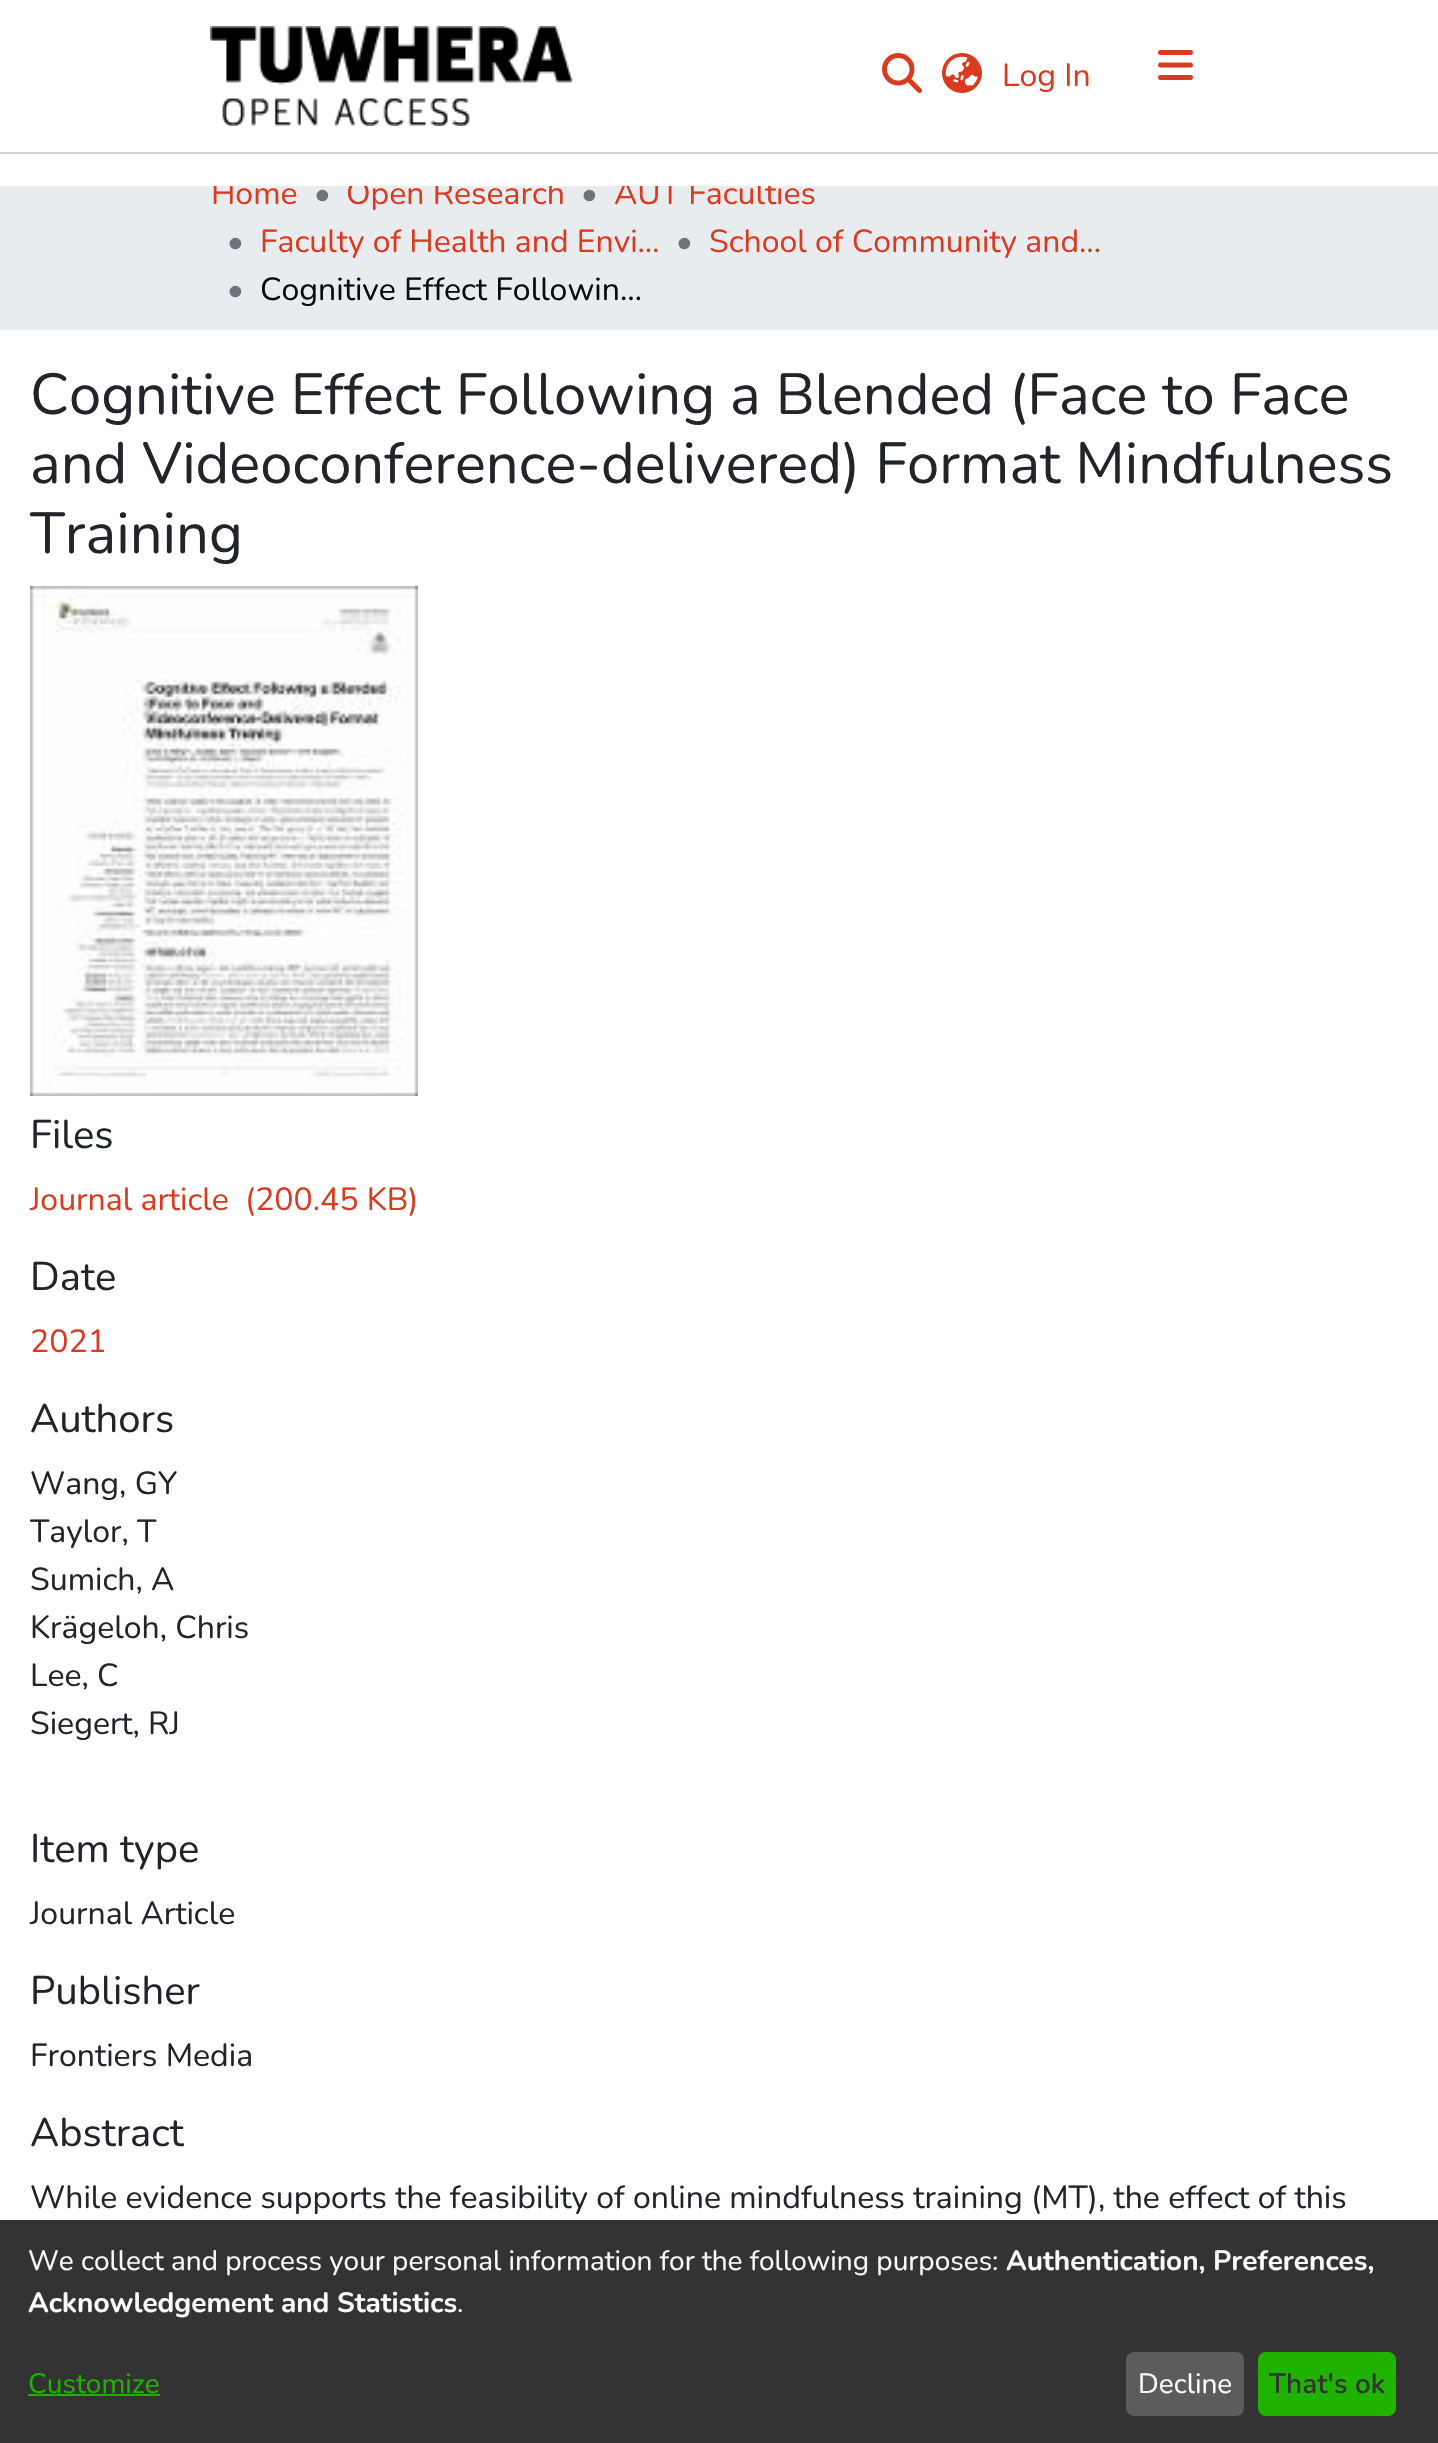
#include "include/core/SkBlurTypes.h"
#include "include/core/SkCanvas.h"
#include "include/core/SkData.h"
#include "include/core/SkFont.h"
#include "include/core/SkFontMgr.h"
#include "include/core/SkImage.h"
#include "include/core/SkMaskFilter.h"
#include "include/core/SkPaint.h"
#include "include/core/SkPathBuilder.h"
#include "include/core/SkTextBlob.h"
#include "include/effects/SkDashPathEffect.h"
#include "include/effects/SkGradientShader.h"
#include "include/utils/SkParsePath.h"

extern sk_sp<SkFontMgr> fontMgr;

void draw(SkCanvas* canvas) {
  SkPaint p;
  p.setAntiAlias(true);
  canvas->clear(SK_ColorWHITE);
  canvas->drawImageRect(SkImages::DeferredFromEncodedData(SkData::MakeFromFileName("images/1.png")), SkRect::MakeLTRB(210, 26, 573, 126), SkSamplingOptions());
  canvas->drawImageRect(SkImages::DeferredFromEncodedData(SkData::MakeFromFileName("images/2.png")), SkRect::MakeLTRB(882, 53, 922, 93), SkSamplingOptions());
  canvas->drawImageRect(SkImages::DeferredFromEncodedData(SkData::MakeFromFileName("images/3.png")), SkRect::MakeLTRB(942, 53, 982, 93), SkSamplingOptions());
  canvas->drawImageRect(SkImages::DeferredFromEncodedData(SkData::MakeFromFileName("images/4.png")), SkRect::MakeLTRB(1158, 50, 1193, 80), SkSamplingOptions());
  p.setColor(SkColorSetRGB(206, 212, 218));
  canvas->drawRect(SkRect::MakeLTRB(0, 152, 1438, 154), p);
  p.setColor(SkColorSetRGB(233, 236, 239));
  canvas->drawRect(SkRect::MakeLTRB(0, 186, 1438, 330), p);
  canvas->drawImageRect(SkImages::DeferredFromEncodedData(SkData::MakeFromFileName("images/5.png")), SkRect::MakeLTRB(30, 586, 418, 1096), SkSamplingOptions());
  p.setColor(SkColorSetRGB(51, 51, 51));
  canvas->drawRect(SkRect::MakeLTRB(0, 2220, 1438, 2443), p);
  p.setColor(SkColorSetRGB(31, 179, 0));
  canvas->drawRect(SkRect::MakeLTRB(28, 2394, 160, 2396), p);
  p.setColor(SkColorSetRGB(92, 92, 92));
  canvas->drawRoundRect(SkRect::MakeLTRB(1126, 2352, 1244, 2416), 8, 8, p);
  p.setColor(SkColorSetRGB(31, 179, 0));
  canvas->drawRoundRect(SkRect::MakeLTRB(1258, 2352, 1396, 2416), 8, 8, p);
  SkFont font1(fontMgr->matchFamilyStyle("Nunito", SkFontStyle::Normal()), 32);
  font1.setSubpixel(true);
  p.setColor(SkColorSetRGB(217, 59, 32));
  canvas->drawString("Log In", 1002, 86, font1, p);
  canvas->drawString("Home", 211, 204, font1, p);
  p.setColor(SkColorSetRGB(108, 117, 125));
  canvas->drawString("•", 314, 204, font1, p);
  p.setColor(SkColorSetRGB(217, 59, 32));
  canvas->drawString("Open Research", 346, 204, font1, p);
  p.setColor(SkColorSetRGB(108, 117, 125));
  canvas->drawString("•", 581, 204, font1, p);
  p.setColor(SkColorSetRGB(217, 59, 32));
  canvas->drawString("AUT Faculties", 614, 204, font1, p);
  p.setColor(SK_ColorWHITE);
  canvas->drawRect(SkRect::MakeLTRB(213, 181, 782, 186), p);
  p.setColor(SkColorSetRGB(108, 117, 125));
  canvas->drawString("•", 227, 252, font1, p);
  p.setColor(SkColorSetRGB(217, 59, 32));
  canvas->drawString("Faculty of Health and Envi…", 260, 252, font1, p);
  p.setColor(SkColorSetRGB(108, 117, 125));
  canvas->drawString("•", 676, 252, font1, p);
  p.setColor(SkColorSetRGB(217, 59, 32));
  canvas->drawString("School of Community and…", 709, 252, font1, p);
  p.setColor(SkColorSetRGB(108, 117, 125));
  canvas->drawString("•", 227, 300, font1, p);
  p.setColor(SkColorSetRGB(4, 13, 17));
  canvas->drawString("Cognitive Effect Followin…", 260, 300, font1, p);
  SkFont font2(fontMgr->matchFamilyStyle("Nunito", SkFontStyle::Normal()), 57.9f);
  font2.setSubpixel(true);
  p.setColor(SkColorSetRGB(33, 37, 41));
  canvas->drawString("Cognitive Effect Following a Blended (Face to Face", 30, 414, font2, p);
  canvas->drawString("and Videoconference-delivered) Format Mindfulness", 30, 483, font2, p);
  canvas->drawString("Training", 30, 553, font2, p);
  SkFont font3(fontMgr->matchFamilyStyle("Nunito", SkFontStyle::Normal()), 40);
  font3.setSubpixel(true);
  canvas->drawString("Files", 30, 1148, font3, p);
  p.setColor(SkColorSetRGB(217, 59, 32));
  canvas->drawString("Journal article", 30, 1210, font1, p);
  canvas->drawString("(200.45 KB)", 245, 1210, font1, p);
  p.setColor(SkColorSetRGB(33, 37, 41));
  canvas->drawString("Date", 30, 1290, font3, p);
  p.setColor(SkColorSetRGB(217, 59, 32));
  canvas->drawString("2021", 30, 1352, font1, p);
  p.setColor(SkColorSetRGB(33, 37, 41));
  canvas->drawString("Authors", 30, 1432, font3, p);
  canvas->drawString("Wang, GY", 30, 1494, font1, p);
  canvas->drawString("Taylor, T", 30, 1542, font1, p);
  canvas->drawString("Sumich, A", 30, 1590, font1, p);
  canvas->drawString("Krägeloh, Chris", 30, 1638, font1, p);
  canvas->drawString("Lee, C", 30, 1686, font1, p);
  canvas->drawString("Siegert, RJ", 30, 1734, font1, p);
  canvas->drawString("Item type", 30, 1862, font3, p);
  canvas->drawString("Journal Article", 30, 1924, font1, p);
  canvas->drawString("Publisher", 30, 2004, font3, p);
  canvas->drawString("Frontiers Media", 30, 2066, font1, p);
  canvas->drawString("Abstract", 30, 2146, font3, p);
  canvas->drawString("While evidence supports the feasibility of online mindfulness training (MT), the effect of this", 30, 2208, font1, p);
  SkFont font4(fontMgr->matchFamilyStyle("Nunito", SkFontStyle::Normal()), 28);
  font4.setSubpixel(true);
  p.setColor(SkColorSetRGB(250, 250, 250));
  canvas->drawString("We collect and process your personal information for the following purposes:", 28, 2270, font4, p);
  SkFont font5(fontMgr->matchFamilyStyle("Nunito", SkFontStyle::Bold()), 28);
  font5.setSubpixel(true);
  canvas->drawString("Authentication, Preferences,", 1006, 2270, font5, p);
  canvas->drawString("Acknowledgement and Statistics", 28, 2312, font5, p);
  canvas->drawString(".", 457, 2312, font4, p);
  p.setColor(SkColorSetRGB(31, 179, 0));
  canvas->drawString("Customize", 28, 2393, font4, p);
  p.setColor(SkColorSetRGB(250, 250, 250));
  canvas->drawString("Decline", 1138, 2393, font4, p);
  SkFont font6(fontMgr->matchFamilyStyle("Nunito", SkFontStyle(600, SkFontStyle::kNormal_Width, SkFontStyle::kUpright_Slant)), 28);
  font6.setSubpixel(true);
  p.setColor(SkColorSetRGB(51, 51, 51));
  canvas->drawString("That's ok", 1269, 2393, font6, p);
}
